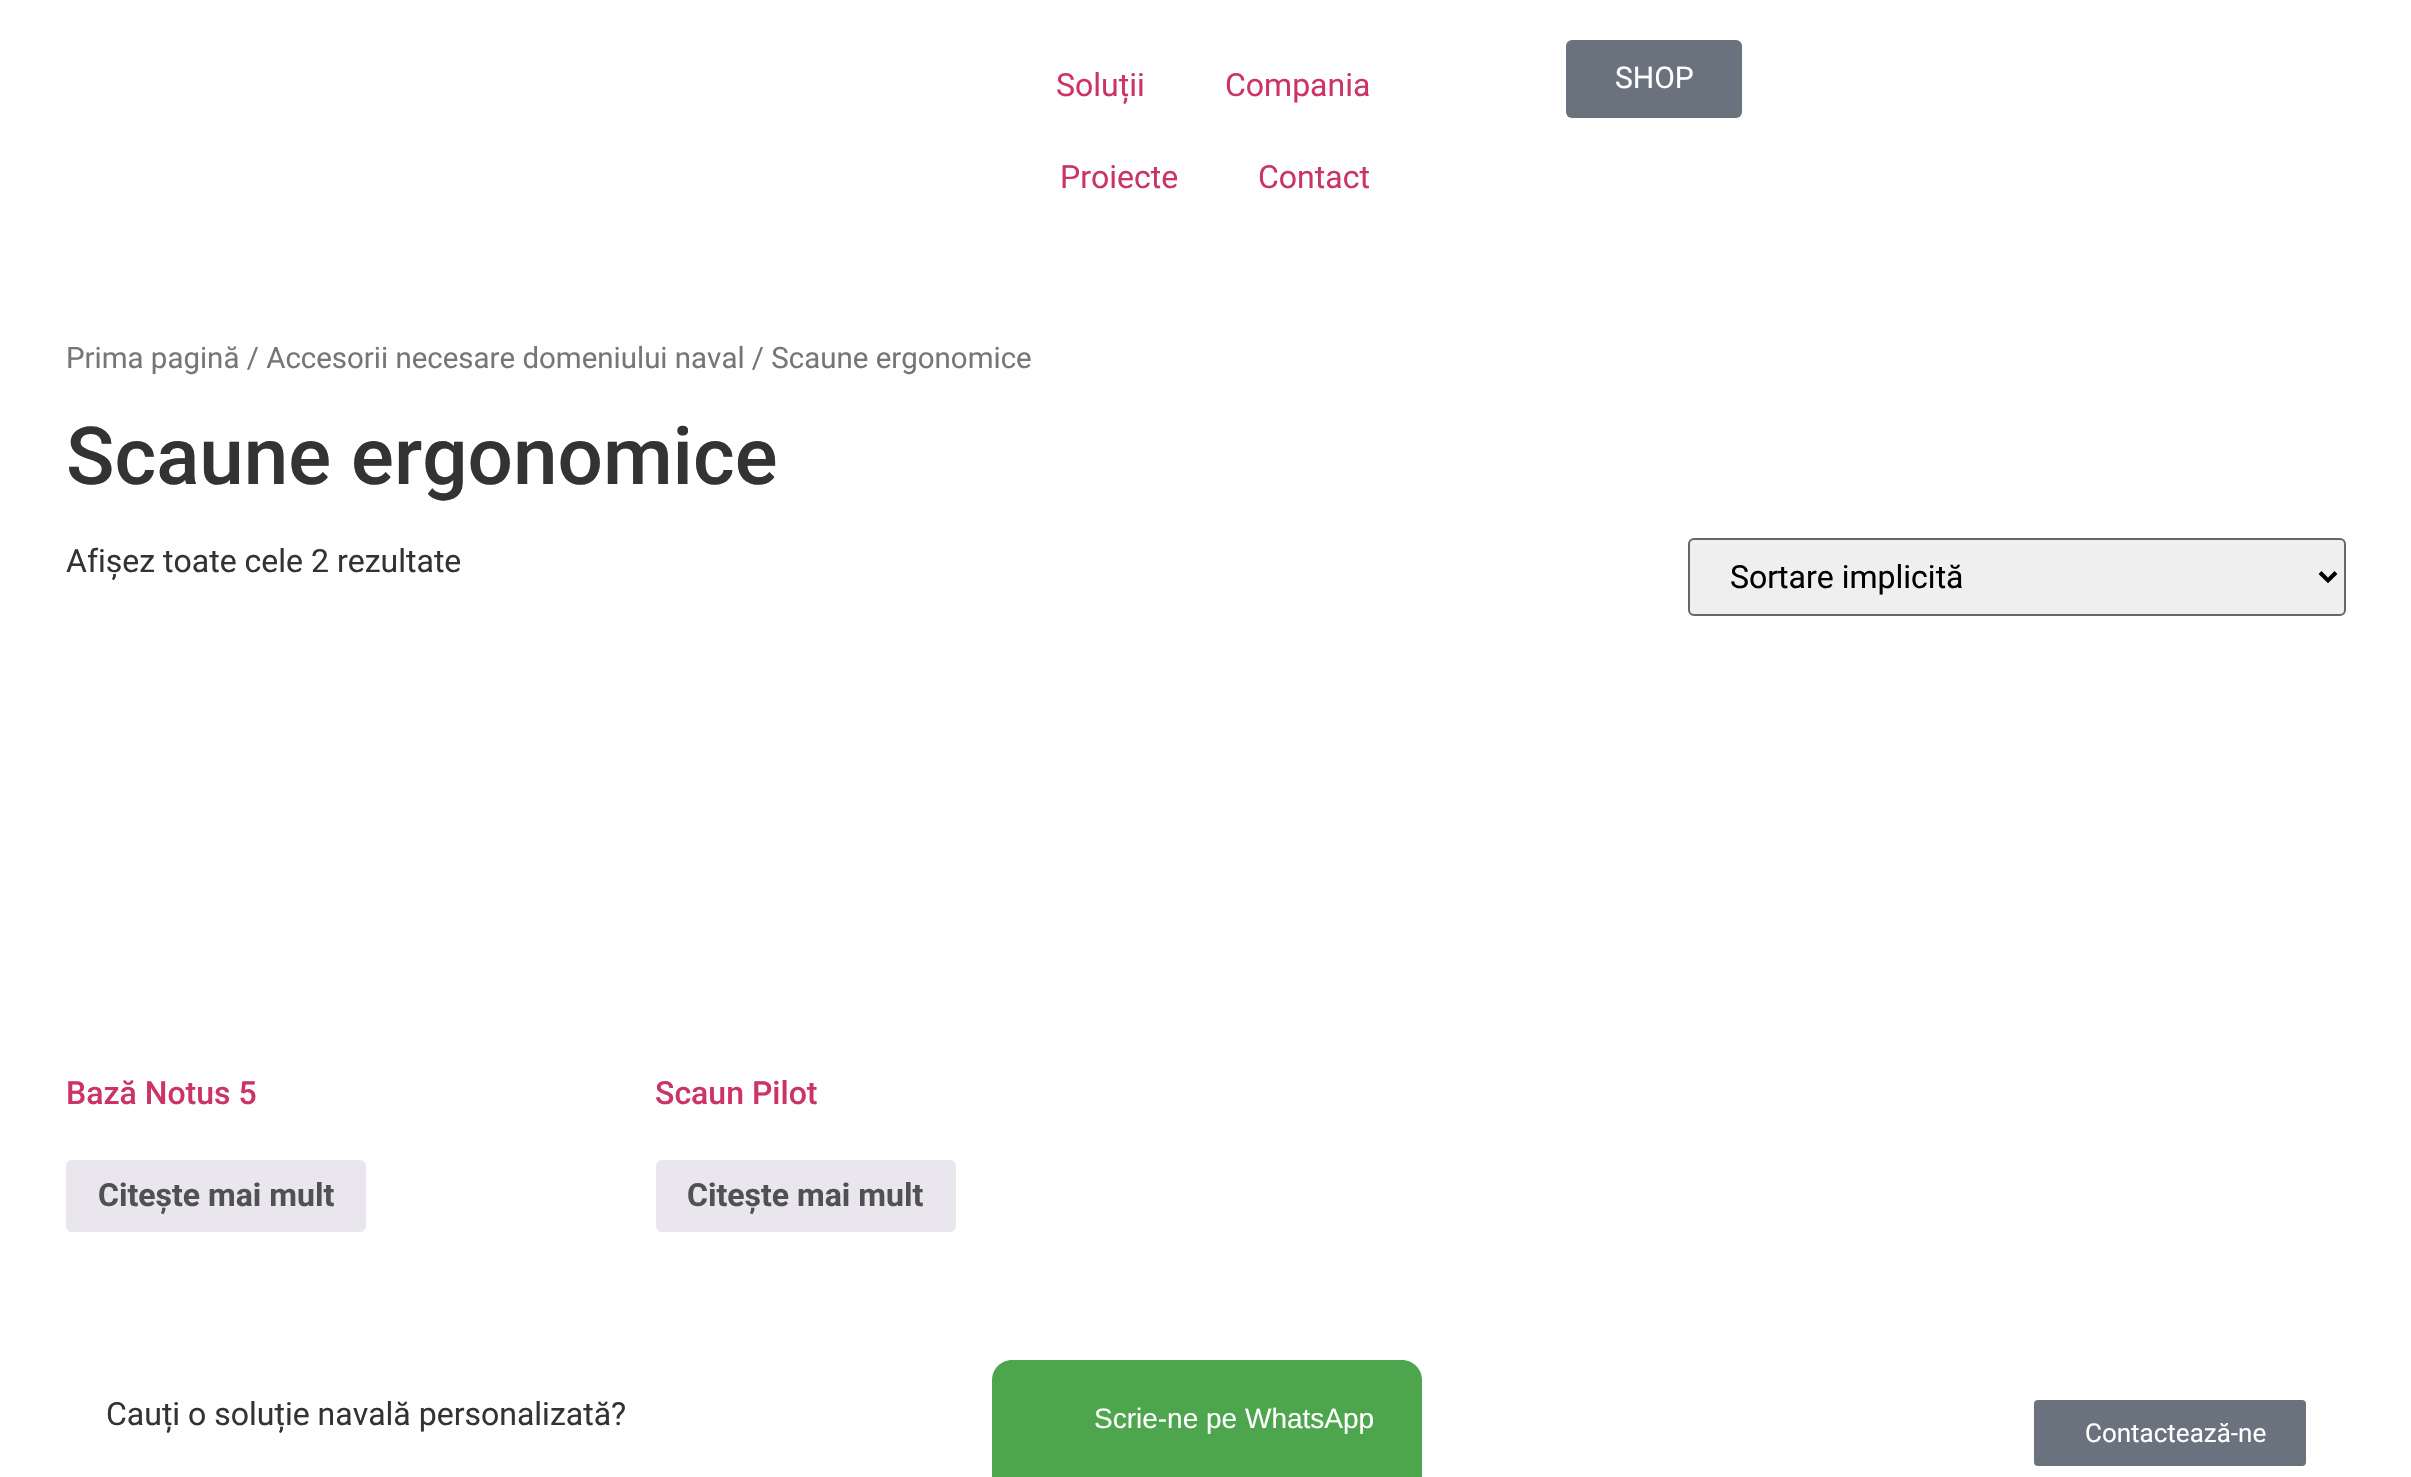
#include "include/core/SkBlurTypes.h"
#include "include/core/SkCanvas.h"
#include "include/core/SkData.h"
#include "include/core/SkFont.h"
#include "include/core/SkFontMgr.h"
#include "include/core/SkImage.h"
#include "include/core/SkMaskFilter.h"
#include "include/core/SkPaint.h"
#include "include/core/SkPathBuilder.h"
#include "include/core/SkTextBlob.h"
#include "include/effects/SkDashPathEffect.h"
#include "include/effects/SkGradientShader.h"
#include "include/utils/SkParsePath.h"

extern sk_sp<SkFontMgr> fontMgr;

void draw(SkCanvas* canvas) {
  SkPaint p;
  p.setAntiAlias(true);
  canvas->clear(SK_ColorWHITE);
  p.setColor(SkColorSetRGB(105, 114, 125));
  canvas->drawRoundRect(SkRect::MakeLTRB(1566, 40, 1742, 118), 6, 6, p);
  p.setColor(SkColorSetRGB(239, 239, 239));
  canvas->drawRoundRect(SkRect::MakeLTRB(1689, 539, 2345, 615), 5, 5, p);
  p.setStyle(SkPaint::kStroke_Style);
  p.setStrokeWidth(2);
  p.setColor(SkColorSetRGB(102, 102, 102));
  canvas->drawRoundRect(SkRect::MakeLTRB(1689, 539, 2345, 615), 5, 5, p);
  p.setStrokeWidth(4);
  p.setColor(SK_ColorBLACK);
  canvas->drawPath(SkPathBuilder().moveTo(2320, 572.5f).lineTo(2328, 580.5f).lineTo(2336, 572.5f).detach(), p);
  p.setStyle(SkPaint::kFill_Style);
  p.setColor(SkColorSetRGB(233, 230, 237));
  canvas->drawRoundRect(SkRect::MakeLTRB(66, 1160, 366, 1232), 6, 6, p);
  canvas->drawRoundRect(SkRect::MakeLTRB(656, 1160, 956, 1232), 6, 6, p);
  p.setColor(SkColorSetRGB(105, 114, 125));
  canvas->drawRoundRect(SkRect::MakeLTRB(2034, 1400, 2306, 1466), 4, 4, p);
  p.setColor(SkColorSetRGB(77, 166, 77));
  canvas->drawPath(SkPathBuilder().moveTo(1012, 1360).lineTo(1402, 1360).cubicTo(1413, 1360, 1422, 1369, 1422, 1380).lineTo(1422, 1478).lineTo(992, 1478).lineTo(992, 1380).cubicTo(992, 1369, 1001, 1360, 1012, 1360).close().detach(), p);
  SkFont font1(fontMgr->matchFamilyStyle("Roboto", SkFontStyle::Normal()), 32);
  font1.setSubpixel(true);
  p.setColor(SkColorSetRGB(204, 51, 102));
  canvas->drawString("Soluții", 1056, 96, font1, p);
  canvas->drawString("Compania", 1225, 96, font1, p);
  canvas->drawString("Proiecte", 1060, 188, font1, p);
  canvas->drawString("Contact", 1258, 188, font1, p);
  SkFont font2(fontMgr->matchFamilyStyle("Roboto", SkFontStyle::Normal()), 30);
  font2.setSubpixel(true);
  p.setColor(SK_ColorWHITE);
  canvas->drawString("SHOP", 1615, 88, font2, p);
  SkFont font3(fontMgr->matchFamilyStyle("Roboto", SkFontStyle::Normal()), 29.45f);
  font3.setSubpixel(true);
  p.setColor(SkColorSetRGB(118, 118, 118));
  canvas->drawString("Prima pagină / Accesorii necesare domeniului naval / Scaune ergonomice", 66, 368, font3, p);
  SkFont font4(fontMgr->matchFamilyStyle("Roboto", SkFontStyle(500, SkFontStyle::kNormal_Width, SkFontStyle::kUpright_Slant)), 80);
  font4.setSubpixel(true);
  p.setColor(SkColorSetRGB(51, 51, 51));
  canvas->drawString("Scaune ergonomice", 66, 484, font4, p);
  canvas->drawString("Afișez toate cele 2 rezultate", 66, 572, font1, p);
  p.setColor(SK_ColorBLACK);
  canvas->drawString("Sortare implicită", 1730, 588, font1, p);
  SkFont font5(fontMgr->matchFamilyStyle("Roboto", SkFontStyle(500, SkFontStyle::kNormal_Width, SkFontStyle::kUpright_Slant)), 32);
  font5.setSubpixel(true);
  p.setColor(SkColorSetRGB(204, 51, 102));
  canvas->drawString("Bază Notus 5", 66, 1104, font5, p);
  SkFont font6(fontMgr->matchFamilyStyle("Roboto", SkFontStyle::Bold()), 32);
  font6.setSubpixel(true);
  p.setColor(SkColorSetRGB(81, 81, 81));
  canvas->drawString("Citește mai mult", 98, 1206, font6, p);
  p.setColor(SkColorSetRGB(204, 51, 102));
  canvas->drawString("Scaun Pilot", 655, 1104, font5, p);
  p.setColor(SkColorSetRGB(81, 81, 81));
  canvas->drawString("Citește mai mult", 687, 1206, font6, p);
  p.setColor(SkColorSetRGB(51, 51, 51));
  canvas->drawString("Cauți o soluție navală personalizată?", 106, 1425, font1, p);
  SkFont font7(fontMgr->matchFamilyStyle("Roboto", SkFontStyle::Normal()), 26);
  font7.setSubpixel(true);
  p.setColor(SK_ColorWHITE);
  canvas->drawString("Contactează-ne", 2085, 1442, font7, p);
  SkFont font8(fontMgr->matchFamilyStyle("Liberation Sans", SkFontStyle::Normal()), 28);
  font8.setSubpixel(true);
  canvas->drawString("Scrie-ne pe WhatsApp", 1094, 1428, font8, p);
}
